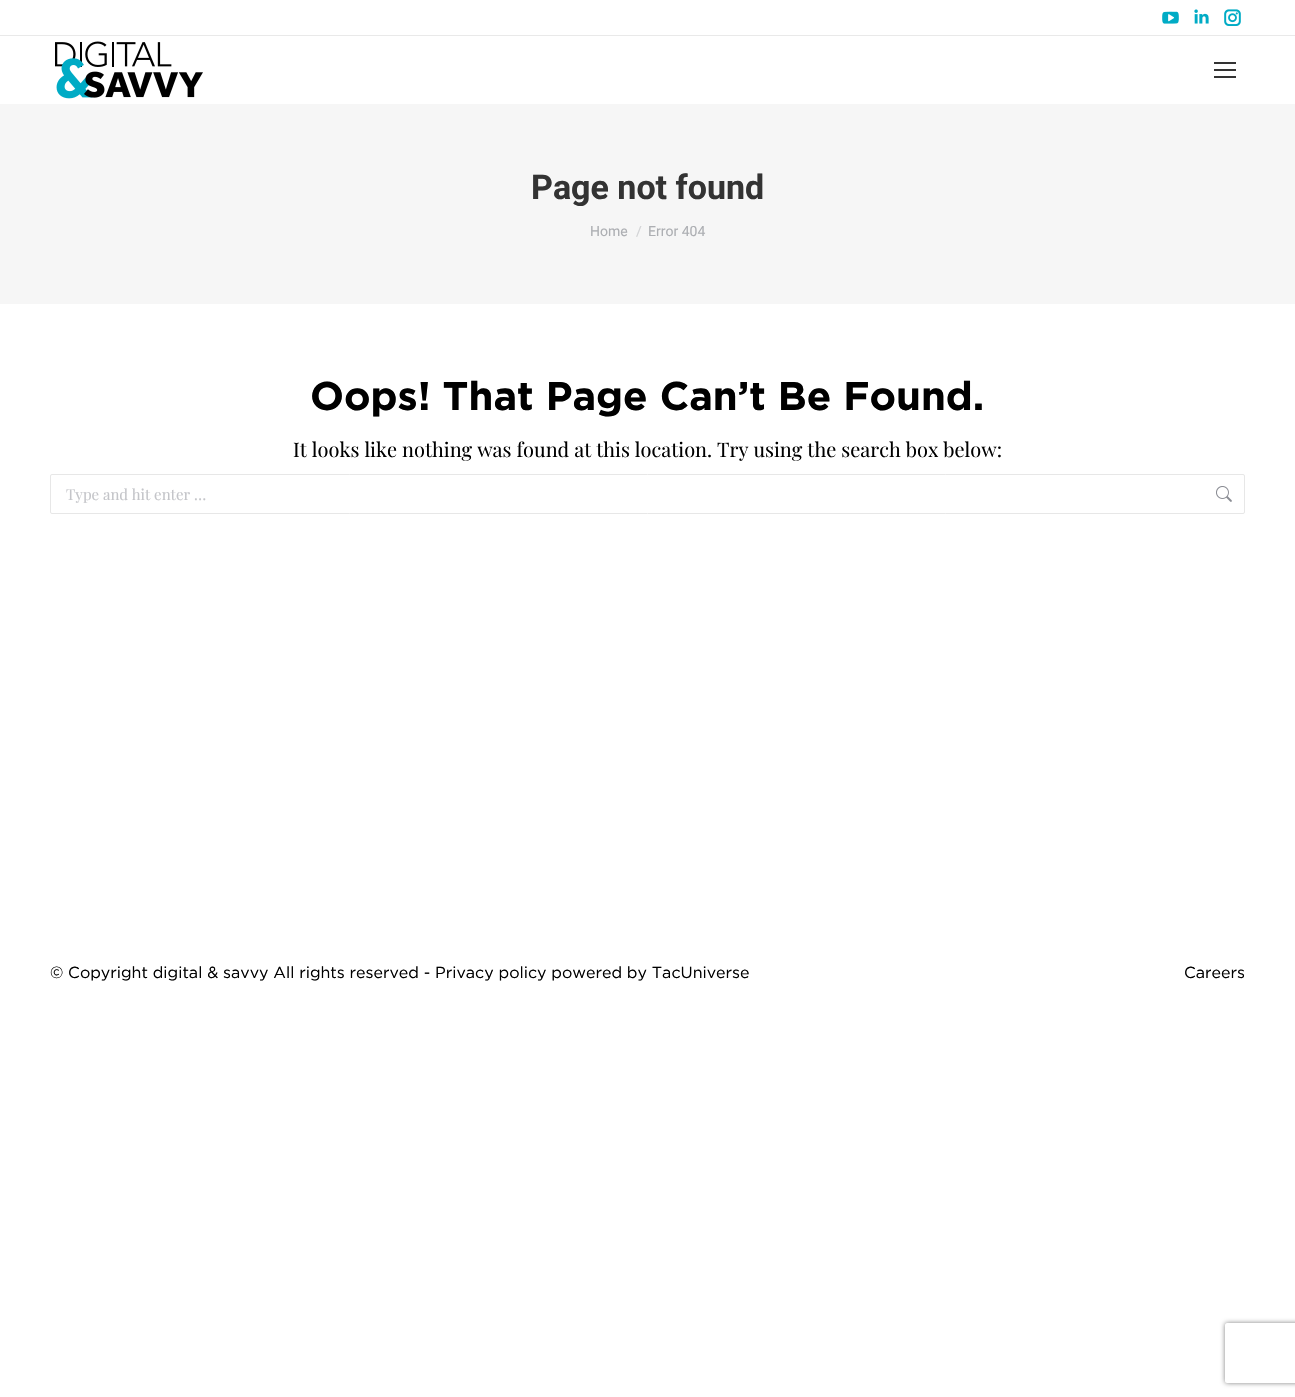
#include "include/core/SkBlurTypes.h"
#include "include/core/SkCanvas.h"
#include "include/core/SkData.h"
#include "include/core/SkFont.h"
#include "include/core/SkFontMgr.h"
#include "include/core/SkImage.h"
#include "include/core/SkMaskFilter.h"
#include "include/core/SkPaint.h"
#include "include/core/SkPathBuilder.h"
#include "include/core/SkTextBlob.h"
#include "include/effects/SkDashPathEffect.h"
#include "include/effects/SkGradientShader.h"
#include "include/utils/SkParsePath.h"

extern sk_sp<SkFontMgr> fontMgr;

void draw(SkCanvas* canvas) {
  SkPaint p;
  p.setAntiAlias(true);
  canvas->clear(SK_ColorWHITE);
  canvas->drawImageRect(SkImages::DeferredFromEncodedData(SkData::MakeFromFileName("images/1.png")), SkRect::MakeLTRB(1162, 11, 1179, 24), SkSamplingOptions());
  canvas->drawImageRect(SkImages::DeferredFromEncodedData(SkData::MakeFromFileName("images/2.png")), SkRect::MakeLTRB(1194, 9, 1209, 24), SkSamplingOptions());
  canvas->drawImageRect(SkImages::DeferredFromEncodedData(SkData::MakeFromFileName("images/3.png")), SkRect::MakeLTRB(1224, 9, 1241, 26), SkSamplingOptions());
  p.setColor(SkColorSetRGB(233, 233, 233));
  canvas->drawRect(SkRect::MakeLTRB(0, 35, 1295, 36), p);
  canvas->drawImageRect(SkImages::DeferredFromEncodedData(SkData::MakeFromFileName("images/4.png")), SkRect::MakeLTRB(55, 41, 203, 99), SkSamplingOptions());
  p.setColor(SkColorSetRGB(51, 51, 51));
  canvas->drawRect(SkRect::MakeLTRB(1214, 62, 1236, 64), p);
  canvas->drawRect(SkRect::MakeLTRB(1214, 69, 1236, 71), p);
  canvas->drawRect(SkRect::MakeLTRB(1214, 76, 1236, 78), p);
  p.setColor(SkColorSetRGB(246, 246, 246));
  canvas->drawRect(SkRect::MakeLTRB(0, 104, 1295, 304), p);
  p.setStyle(SkPaint::kStroke_Style);
  p.setStrokeWidth(1);
  p.setColor(SkColorSetRGB(231, 231, 231));
  canvas->drawRoundRect(SkRect::MakeLTRB(50.5f, 474.5f, 1244.5f, 513.5f), 1.5f, 1.5f, p);
  canvas->drawImageRect(SkImages::DeferredFromEncodedData(SkData::MakeFromFileName("images/5.png")), SkRect::MakeLTRB(1216, 486, 1232, 502), SkSamplingOptions());
  canvas->save();
  canvas->clipPath(SkPathBuilder(SkPathFillType::kEvenOdd).moveTo(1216, 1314).lineTo(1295, 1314).lineTo(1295, 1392).lineTo(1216, 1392).close().moveTo(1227, 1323).lineTo(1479, 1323).cubicTo(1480, 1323, 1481, 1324, 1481, 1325).lineTo(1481, 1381).cubicTo(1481, 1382, 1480, 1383, 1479, 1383).lineTo(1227, 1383).cubicTo(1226, 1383, 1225, 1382, 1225, 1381).lineTo(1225, 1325).cubicTo(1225, 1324, 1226, 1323, 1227, 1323).close().detach(), true);
  p.setStyle(SkPaint::kFill_Style);
  p.setColor(SkColorSetRGB(128, 128, 128));
  p.setMaskFilter(SkMaskFilter::MakeBlur(kNormal_SkBlurStyle, 2.5f));
  canvas->drawRoundRect(SkRect::MakeLTRB(1225, 1323, 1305, 1383), 2, 2, p);
  p.setMaskFilter(nullptr);
  canvas->restore();
  SkFont font1(fontMgr->matchFamilyStyle("Roboto", SkFontStyle::Bold()), 34);
  font1.setSubpixel(true);
  p.setColor(SkColorSetRGB(51, 51, 51));
  canvas->drawString("Page not found", 531, 199, font1, p);
  SkFont font2(fontMgr->matchFamilyStyle("Roboto", SkFontStyle::Normal()), 14);
  font2.setSubpixel(true);
  p.setColor(SkColorSetRGB(173, 175, 179));
  canvas->drawString("Home", 590, 236, font2, p);
  p.setColor(SkColorSetRGB(210, 211, 213));
  canvas->drawString("/", 636, 236, font2, p);
  p.setColor(SkColorSetRGB(173, 175, 179));
  canvas->drawString("Error 404", 648, 236, font2, p);
  SkFont font3(fontMgr->matchFamilyStyle("Gotham", SkFontStyle::Bold()), 40);
  font3.setSubpixel(true);
  p.setColor(SK_ColorBLACK);
  canvas->drawString("Oops! That Page Can’t Be Found.", 310, 410, font3, p);
  SkFont font4(fontMgr->matchFamilyStyle("Playfair Display", SkFontStyle::Normal()), 20);
  font4.setSubpixel(true);
  canvas->drawString("It looks like nothing was found at this location. Try using the search box below:", 293, 457, font4, p);
  SkFont font5(fontMgr->matchFamilyStyle("Playfair Display", SkFontStyle::Normal()), 15);
  font5.setSubpixel(true);
  p.setColor(SkColorSetRGB(196, 197, 201));
  canvas->drawString("Type and hit enter …", 66, 500, font5, p);
  SkFont font6(fontMgr->matchFamilyStyle("Gotham", SkFontStyle::Normal()), 16);
  font6.setSubpixel(true);
  p.setColor(SK_ColorBLACK);
  canvas->drawString("© Copyright digital & savvy All rights reserved - Privacy policy powered by TacUniverse", 50, 978, font6, p);
  canvas->drawString("Careers", 1184, 978, font6, p);
}
